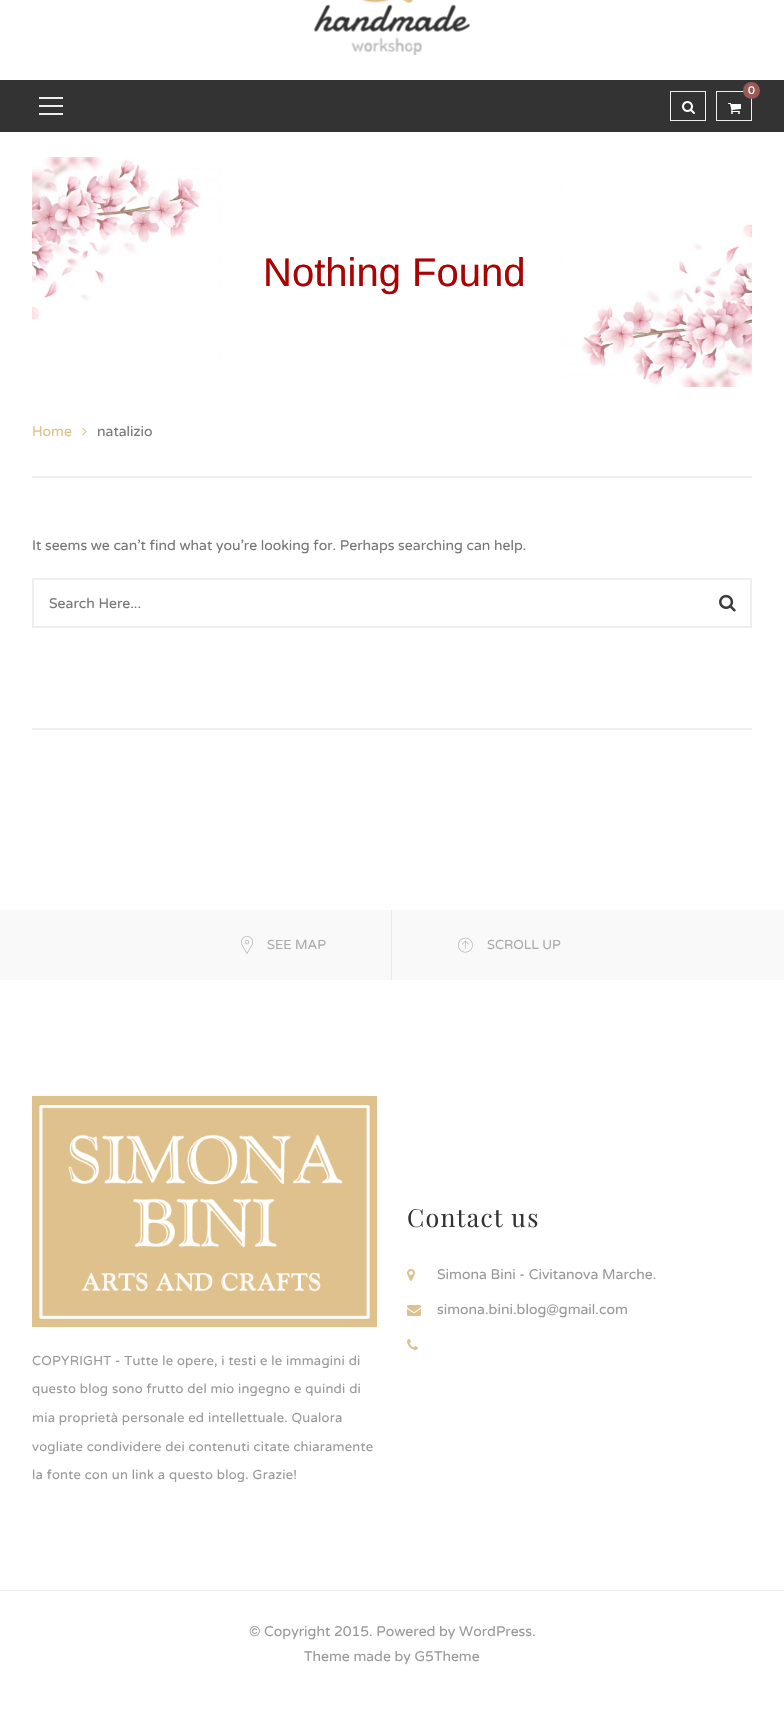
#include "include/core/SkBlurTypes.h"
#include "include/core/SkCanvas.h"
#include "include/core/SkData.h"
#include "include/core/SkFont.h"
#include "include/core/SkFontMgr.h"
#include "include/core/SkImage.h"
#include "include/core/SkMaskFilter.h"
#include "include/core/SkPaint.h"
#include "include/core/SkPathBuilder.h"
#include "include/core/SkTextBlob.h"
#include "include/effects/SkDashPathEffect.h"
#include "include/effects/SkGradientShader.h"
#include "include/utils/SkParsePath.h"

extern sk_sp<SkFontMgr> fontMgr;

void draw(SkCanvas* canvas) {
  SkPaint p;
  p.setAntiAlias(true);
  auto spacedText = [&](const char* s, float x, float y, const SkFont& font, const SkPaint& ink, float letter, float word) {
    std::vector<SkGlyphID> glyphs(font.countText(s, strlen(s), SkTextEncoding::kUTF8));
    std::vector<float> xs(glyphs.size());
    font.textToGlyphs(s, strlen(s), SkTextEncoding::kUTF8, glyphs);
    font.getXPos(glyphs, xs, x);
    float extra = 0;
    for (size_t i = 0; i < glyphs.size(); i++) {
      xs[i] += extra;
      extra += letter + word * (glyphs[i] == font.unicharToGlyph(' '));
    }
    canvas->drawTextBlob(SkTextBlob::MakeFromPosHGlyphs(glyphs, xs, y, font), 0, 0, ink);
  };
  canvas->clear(SK_ColorWHITE);
  canvas->drawImageRect(SkImages::DeferredFromEncodedData(SkData::MakeFromFileName("images/1.png")), SkRect::MakeLTRB(314, 0, 470, 55), SkSamplingOptions());
  p.setColor(SkColorSetRGB(51, 51, 51));
  canvas->drawRect(SkRect::MakeLTRB(0, 80, 784, 132), p);
  p.setStyle(SkPaint::kStroke_Style);
  p.setStrokeWidth(1);
  p.setColor(SkColorSetRGB(238, 238, 238));
  canvas->drawRect(SkRect::MakeLTRB(670.5f, 91.5f, 705.5f, 120.5f), p);
  canvas->drawImageRect(SkImages::DeferredFromEncodedData(SkData::MakeFromFileName("images/2.png")), SkRect::MakeLTRB(682, 101, 695, 114), SkSamplingOptions());
  canvas->drawRect(SkRect::MakeLTRB(716.5f, 91.5f, 751.5f, 120.5f), p);
  p.setStyle(SkPaint::kFill_Style);
  p.setColor(SkColorSetRGB(153, 89, 88));
  canvas->drawCircle(751.5f, 90.5f, 8.5f, p);
  canvas->drawImageRect(SkImages::DeferredFromEncodedData(SkData::MakeFromFileName("images/3.png")), SkRect::MakeLTRB(728, 103, 741, 114), SkSamplingOptions());
  p.setColor(SkColorSetRGB(238, 238, 238));
  canvas->drawRect(SkRect::MakeLTRB(39, 97, 63, 99), p);
  canvas->drawRect(SkRect::MakeLTRB(39, 105, 63, 107), p);
  canvas->drawRect(SkRect::MakeLTRB(39, 113, 63, 115), p);
  canvas->drawImageRect(SkImages::DeferredFromEncodedData(SkData::MakeFromFileName("images/4.png")), SkRect::MakeLTRB(32, 157, 752, 387), SkSamplingOptions());
  canvas->drawRect(SkRect::MakeLTRB(32, 476, 752, 478), p);
  canvas->drawImageRect(SkImages::DeferredFromEncodedData(SkData::MakeFromFileName("images/5.png")), SkRect::MakeLTRB(82, 427, 87, 436), SkSamplingOptions());
  p.setStyle(SkPaint::kStroke_Style);
  p.setStrokeWidth(2);
  canvas->drawRect(SkRect::MakeLTRB(33, 579, 751, 627), p);
  canvas->drawImageRect(SkImages::DeferredFromEncodedData(SkData::MakeFromFileName("images/6.png")), SkRect::MakeLTRB(719, 594, 736, 612), SkSamplingOptions());
  p.setStyle(SkPaint::kFill_Style);
  canvas->drawRect(SkRect::MakeLTRB(32, 728, 752, 730), p);
  p.setColor(SkColorSetRGB(249, 249, 249));
  canvas->drawRect(SkRect::MakeLTRB(0, 910, 784, 980), p);
  p.setColor(SkColorSetRGB(234, 234, 234));
  canvas->drawRect(SkRect::MakeLTRB(391, 910, 392, 980), p);
  canvas->drawImageRect(SkImages::DeferredFromEncodedData(SkData::MakeFromFileName("images/7.png")), SkRect::MakeLTRB(241, 936, 253, 954), SkSamplingOptions());
  canvas->drawImageRect(SkImages::DeferredFromEncodedData(SkData::MakeFromFileName("images/8.png")), SkRect::MakeLTRB(458, 937, 473, 953), SkSamplingOptions());
  canvas->drawImageRect(SkImages::DeferredFromEncodedData(SkData::MakeFromFileName("images/9.png")), SkRect::MakeLTRB(407, 1269, 415, 1281), SkSamplingOptions());
  canvas->drawImageRect(SkImages::DeferredFromEncodedData(SkData::MakeFromFileName("images/10.png")), SkRect::MakeLTRB(407, 1305, 421, 1316), SkSamplingOptions());
  canvas->drawImageRect(SkImages::DeferredFromEncodedData(SkData::MakeFromFileName("images/11.png")), SkRect::MakeLTRB(407, 1339, 418, 1350), SkSamplingOptions());
  canvas->drawImageRect(SkImages::DeferredFromEncodedData(SkData::MakeFromFileName("images/12.png")), SkRect::MakeLTRB(32, 1096, 377, 1327), SkSamplingOptions());
  p.setColor(SkColorSetRGB(237, 237, 237));
  canvas->drawRect(SkRect::MakeLTRB(0, 1590, 784, 1591), p);
  SkFont font1(fontMgr->matchFamilyStyle("Varela Round", SkFontStyle::Normal()), 11);
  font1.setSubpixel(true);
  p.setColor(SK_ColorWHITE);
  canvas->drawString("0", 748, 94, font1, p);
  SkFont font2(fontMgr->matchFamilyStyle("Liberation Sans", SkFontStyle::Normal()), 40);
  font2.setSubpixel(true);
  p.setColor(SkColorSetRGB(170, 3, 3));
  canvas->drawString("Nothing Found", 263, 286, font2, p);
  SkFont font3(fontMgr->matchFamilyStyle("Varela Round", SkFontStyle::Normal()), 14);
  font3.setSubpixel(true);
  p.setColor(SkColorSetRGB(222, 193, 140));
  canvas->drawString("Home", 32, 436, font3, p);
  p.setColor(SkColorSetRGB(119, 119, 119));
  canvas->drawString("natalizio", 97, 436, font3, p);
  canvas->drawString("It seems we can’t find what you’re looking for. Perhaps searching can help.", 32, 550, font3, p);
  canvas->drawString("Search Here...", 49, 608, font3, p);
  SkFont font4(fontMgr->matchFamilyStyle("Varela Round", SkFontStyle::Normal()), 13);
  font4.setSubpixel(true);
  p.setColor(SkColorSetRGB(170, 170, 170));
  canvas->drawString("SEE MAP", 267, 949, font4, p);
  canvas->drawString("SCROLL UP", 487, 949, font4, p);
  SkFont font5(fontMgr->matchFamilyStyle("Playfair Display", SkFontStyle::Normal()), 25);
  font5.setSubpixel(true);
  p.setColor(SkColorSetRGB(51, 51, 51));
  spacedText("Contact us", 407, 1227, font5, p, 1.25f, 0);
  p.setColor(SkColorSetRGB(153, 153, 153));
  canvas->drawString("Simona Bini - Civitanova Marche.", 437, 1279, font3, p);
  canvas->drawString("simona.bini.blog@gmail.com", 437, 1314, font3, p);
  spacedText("COPYRIGHT - Tutte le opere, i testi e le immagini di", 32, 1365, font4, p, 0.25f, 0);
  spacedText("questo blog sono frutto del mio ingegno e quindi di", 32, 1393, font4, p, 0.25f, 0);
  spacedText("mia proprietà personale ed intellettuale. Qualora", 32, 1422, font4, p, 0.25f, 0);
  spacedText("vogliate condividere dei contenuti citate chiaramente", 32, 1451, font4, p, 0.25f, 0);
  spacedText("la fonte con un link a questo blog. Grazie!", 32, 1479, font4, p, 0.25f, 0);
  canvas->drawString("© Copyright 2015. Powered by WordPress.", 249, 1636, font3, p);
  canvas->drawString("Theme made by G5Theme", 304, 1661, font3, p);
}
